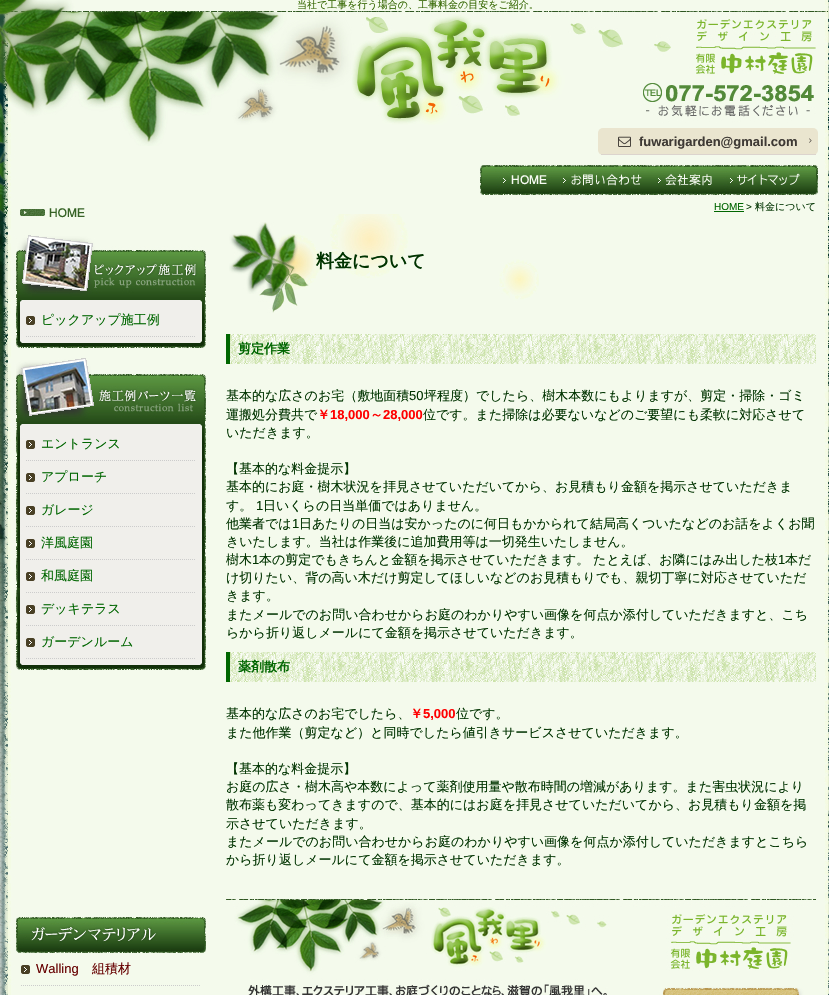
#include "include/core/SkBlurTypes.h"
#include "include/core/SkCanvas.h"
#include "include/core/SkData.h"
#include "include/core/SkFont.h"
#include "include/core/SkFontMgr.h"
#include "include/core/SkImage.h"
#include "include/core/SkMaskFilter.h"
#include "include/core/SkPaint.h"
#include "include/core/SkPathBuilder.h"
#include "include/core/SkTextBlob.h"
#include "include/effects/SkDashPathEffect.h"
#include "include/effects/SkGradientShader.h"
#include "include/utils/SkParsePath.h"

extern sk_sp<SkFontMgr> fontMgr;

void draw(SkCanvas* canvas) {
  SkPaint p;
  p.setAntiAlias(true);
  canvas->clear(SK_ColorWHITE);
  canvas->drawImageRect(SkImages::DeferredFromEncodedData(SkData::MakeFromFileName("images/1.png")), SkRect::MakeLTRB(0, 0, 829, 995), SkSamplingOptions());
  canvas->drawImageRect(SkImages::DeferredFromEncodedData(SkData::MakeFromFileName("images/2.png")), SkRect::MakeLTRB(12, 12, 816, 146), SkSamplingOptions());
  p.setColor(SkColorSetRGB(234, 229, 207));
  canvas->drawRoundRect(SkRect::MakeLTRB(598, 128, 818, 155), 5, 5, p);
  p.setColor(SkColorSetRGB(220, 212, 205));
  canvas->drawRect(SkRect::MakeLTRB(601, 154, 816, 155), p);
  canvas->drawImageRect(SkImages::DeferredFromEncodedData(SkData::MakeFromFileName("images/3.png")), SkRect::MakeLTRB(618, 136, 631, 147), SkSamplingOptions());
  canvas->drawImageRect(SkImages::DeferredFromEncodedData(SkData::MakeFromFileName("images/4.png")), SkRect::MakeLTRB(809, 138, 812, 143), SkSamplingOptions());
  canvas->drawImageRect(SkImages::DeferredFromEncodedData(SkData::MakeFromFileName("images/5.png")), SkRect::MakeLTRB(480, 165, 555, 195), SkSamplingOptions());
  canvas->drawImageRect(SkImages::DeferredFromEncodedData(SkData::MakeFromFileName("images/6.png")), SkRect::MakeLTRB(555, 165, 650, 195), SkSamplingOptions());
  canvas->drawImageRect(SkImages::DeferredFromEncodedData(SkData::MakeFromFileName("images/7.png")), SkRect::MakeLTRB(650, 165, 723, 195), SkSamplingOptions());
  canvas->drawImageRect(SkImages::DeferredFromEncodedData(SkData::MakeFromFileName("images/8.png")), SkRect::MakeLTRB(723, 165, 818, 195), SkSamplingOptions());
  canvas->drawImageRect(SkImages::DeferredFromEncodedData(SkData::MakeFromFileName("images/9.png")), SkRect::MakeLTRB(20, 208, 85, 218), SkSamplingOptions());
  canvas->drawImageRect(SkImages::DeferredFromEncodedData(SkData::MakeFromFileName("images/10.png")), SkRect::MakeLTRB(16, 337, 206, 348), SkSamplingOptions());
  canvas->drawImageRect(SkImages::DeferredFromEncodedData(SkData::MakeFromFileName("images/11.png")), SkRect::MakeLTRB(16, 235, 206, 304), SkSamplingOptions());
  canvas->drawImageRect(SkImages::DeferredFromEncodedData(SkData::MakeFromFileName("images/12.png")), SkRect::MakeLTRB(16, 304, 206, 337), SkSamplingOptions());
  p.setStyle(SkPaint::kStroke_Style);
  p.setStrokeWidth(1);
  p.setColor(SkColorSetRGB(204, 204, 204));
  p.setPathEffect(SkDashPathEffect::Make({{1, 1}}, 0));
  canvas->drawPath(SkPathBuilder().moveTo(26, 336.5f).lineTo(196, 336.5f).detach(), p);
  p.setPathEffect(nullptr);
  canvas->drawImageRect(SkImages::DeferredFromEncodedData(SkData::MakeFromFileName("images/13.png")), SkRect::MakeLTRB(26, 316, 35, 325), SkSamplingOptions());
  canvas->drawImageRect(SkImages::DeferredFromEncodedData(SkData::MakeFromFileName("images/10.png")), SkRect::MakeLTRB(16, 659, 206, 670), SkSamplingOptions());
  canvas->drawImageRect(SkImages::DeferredFromEncodedData(SkData::MakeFromFileName("images/14.png")), SkRect::MakeLTRB(16, 358, 206, 428), SkSamplingOptions());
  canvas->drawImageRect(SkImages::DeferredFromEncodedData(SkData::MakeFromFileName("images/15.png")), SkRect::MakeLTRB(16, 428, 206, 659), SkSamplingOptions());
  p.setPathEffect(SkDashPathEffect::Make({{1, 1}}, 0));
  canvas->drawPath(SkPathBuilder().moveTo(26, 460.5f).lineTo(196, 460.5f).detach(), p);
  p.setPathEffect(nullptr);
  canvas->drawImageRect(SkImages::DeferredFromEncodedData(SkData::MakeFromFileName("images/13.png")), SkRect::MakeLTRB(26, 440, 35, 449), SkSamplingOptions());
  p.setPathEffect(SkDashPathEffect::Make({{1, 1}}, 0));
  canvas->drawPath(SkPathBuilder().moveTo(26, 493.5f).lineTo(196, 493.5f).detach(), p);
  p.setPathEffect(nullptr);
  canvas->drawImageRect(SkImages::DeferredFromEncodedData(SkData::MakeFromFileName("images/13.png")), SkRect::MakeLTRB(26, 473, 35, 482), SkSamplingOptions());
  p.setPathEffect(SkDashPathEffect::Make({{1, 1}}, 0));
  canvas->drawPath(SkPathBuilder().moveTo(26, 526.5f).lineTo(196, 526.5f).detach(), p);
  p.setPathEffect(nullptr);
  canvas->drawImageRect(SkImages::DeferredFromEncodedData(SkData::MakeFromFileName("images/13.png")), SkRect::MakeLTRB(26, 506, 35, 515), SkSamplingOptions());
  p.setPathEffect(SkDashPathEffect::Make({{1, 1}}, 0));
  canvas->drawPath(SkPathBuilder().moveTo(26, 559.5f).lineTo(196, 559.5f).detach(), p);
  p.setPathEffect(nullptr);
  canvas->drawImageRect(SkImages::DeferredFromEncodedData(SkData::MakeFromFileName("images/13.png")), SkRect::MakeLTRB(26, 539, 35, 548), SkSamplingOptions());
  p.setPathEffect(SkDashPathEffect::Make({{1, 1}}, 0));
  canvas->drawPath(SkPathBuilder().moveTo(26, 592.5f).lineTo(196, 592.5f).detach(), p);
  p.setPathEffect(nullptr);
  canvas->drawImageRect(SkImages::DeferredFromEncodedData(SkData::MakeFromFileName("images/13.png")), SkRect::MakeLTRB(26, 572, 35, 581), SkSamplingOptions());
  p.setPathEffect(SkDashPathEffect::Make({{1, 1}}, 0));
  canvas->drawPath(SkPathBuilder().moveTo(26, 625.5f).lineTo(196, 625.5f).detach(), p);
  p.setPathEffect(nullptr);
  canvas->drawImageRect(SkImages::DeferredFromEncodedData(SkData::MakeFromFileName("images/13.png")), SkRect::MakeLTRB(26, 605, 35, 614), SkSamplingOptions());
  p.setPathEffect(SkDashPathEffect::Make({{1, 1}}, 0));
  canvas->drawPath(SkPathBuilder().moveTo(26, 658.5f).lineTo(196, 658.5f).detach(), p);
  p.setPathEffect(nullptr);
  canvas->drawImageRect(SkImages::DeferredFromEncodedData(SkData::MakeFromFileName("images/13.png")), SkRect::MakeLTRB(26, 638, 35, 647), SkSamplingOptions());
  canvas->drawImageRect(SkImages::DeferredFromEncodedData(SkData::MakeFromFileName("images/16.png")), SkRect::MakeLTRB(16, 917, 206, 953), SkSamplingOptions());
  p.setPathEffect(SkDashPathEffect::Make({{1, 1}}, 0));
  canvas->drawPath(SkPathBuilder().moveTo(21, 985.5f).lineTo(201, 985.5f).detach(), p);
  p.setPathEffect(nullptr);
  canvas->drawImageRect(SkImages::DeferredFromEncodedData(SkData::MakeFromFileName("images/13.png")), SkRect::MakeLTRB(21, 965, 30, 974), SkSamplingOptions());
  p.setStyle(SkPaint::kFill_Style);
  p.setColor(SkColorSetRGB(0, 102, 0));
  canvas->drawRect(SkRect::MakeLTRB(714, 211, 744, 212), p);
  canvas->drawImageRect(SkImages::DeferredFromEncodedData(SkData::MakeFromFileName("images/17.png")), SkRect::MakeLTRB(229, 214, 539, 313), SkSamplingOptions());
  canvas->drawImageRect(SkImages::DeferredFromEncodedData(SkData::MakeFromFileName("images/18.png")), SkRect::MakeLTRB(230, 334, 816, 364), SkSamplingOptions());
  canvas->drawRect(SkRect::MakeLTRB(226, 334, 230, 364), p);
  canvas->drawImageRect(SkImages::DeferredFromEncodedData(SkData::MakeFromFileName("images/18.png")), SkRect::MakeLTRB(230, 652, 816, 682), SkSamplingOptions());
  canvas->drawRect(SkRect::MakeLTRB(226, 652, 230, 682), p);
  canvas->drawImageRect(SkImages::DeferredFromEncodedData(SkData::MakeFromFileName("images/19.png")), SkRect::MakeLTRB(226, 899, 816, 995), SkSamplingOptions());
  SkFont font1(fontMgr->matchFamilyStyle("WenQuanYi Zen Hei", SkFontStyle(500, SkFontStyle::kNormal_Width, SkFontStyle::kUpright_Slant)), 10);
  font1.setSubpixel(true);
  p.setColor(SkColorSetRGB(51, 102, 0));
  canvas->drawString("当社で工事を行う場合の、工事料金の目安をご紹介。", 297, 8, font1, p);
  SkFont font2(fontMgr->matchFamilyStyle("Liberation Sans", SkFontStyle::Bold()), 13);
  font2.setSubpixel(true);
  p.setColor(SkColorSetRGB(62, 57, 52));
  canvas->drawString("fuwarigarden@gmail.com", 639, 146, font2, p);
  SkFont font3(fontMgr->matchFamilyStyle("WenQuanYi Zen Hei", SkFontStyle(500, SkFontStyle::kNormal_Width, SkFontStyle::kUpright_Slant)), 13);
  font3.setSubpixel(true);
  p.setColor(SkColorSetRGB(0, 102, 0));
  canvas->drawString("ピックアップ施工例", 41, 324, font3, p);
  canvas->drawString("エントランス", 41, 448, font3, p);
  canvas->drawString("アプローチ", 41, 481, font3, p);
  canvas->drawString("ガレージ", 41, 514, font3, p);
  canvas->drawString("洋風庭園", 41, 547, font3, p);
  canvas->drawString("和風庭園", 41, 580, font3, p);
  canvas->drawString("デッキテラス", 41, 613, font3, p);
  canvas->drawString("ガーデンルーム", 41, 646, font3, p);
  SkFont font4(fontMgr->matchFamilyStyle("Liberation Sans", SkFontStyle::Normal()), 13);
  font4.setSubpixel(true);
  p.setColor(SkColorSetRGB(102, 0, 0));
  canvas->drawString("Walling", 36, 973, font4, p);
  canvas->drawString("組積材", 92, 973, font3, p);
  SkFont font5(fontMgr->matchFamilyStyle("Liberation Sans", SkFontStyle::Normal()), 10);
  font5.setSubpixel(true);
  p.setColor(SkColorSetRGB(0, 102, 0));
  canvas->drawString("HOME", 714, 210, font5, p);
  p.setColor(SkColorSetRGB(0, 51, 0));
  canvas->drawString(">", 746, 210, font5, p);
  canvas->drawString("料金について", 755, 210, font1, p);
  SkFont font6(fontMgr->matchFamilyStyle("WenQuanYi Zen Hei", SkFontStyle::Bold()), 18);
  font6.setSubpixel(true);
  canvas->drawString("料金について", 316, 267, font6, p);
  SkFont font7(fontMgr->matchFamilyStyle("WenQuanYi Zen Hei", SkFontStyle::Bold()), 13);
  font7.setSubpixel(true);
  p.setColor(SkColorSetRGB(0, 102, 0));
  canvas->drawString("剪定作業", 238, 353, font7, p);
  p.setColor(SkColorSetRGB(0, 51, 0));
  canvas->drawString("基本的な広さのお宅（敷地面積", 226, 400, font3, p);
  canvas->drawString("50", 409, 400, font4, p);
  canvas->drawString("坪程度）でしたら、樹木本数にもよりますが、剪定・掃除・ゴミ", 424, 400, font3, p);
  canvas->drawString("運搬処分費共で", 226, 419, font3, p);
  p.setColor(SkColorSetRGB(255, 0, 0));
  canvas->drawString("￥", 317, 419, font7, p);
  canvas->drawString("18,000", 330, 419, font2, p);
  canvas->drawString("～", 370, 419, font7, p);
  canvas->drawString("28,000", 383, 419, font2, p);
  p.setColor(SkColorSetRGB(0, 51, 0));
  canvas->drawString("位です。また掃除は必要ないなどのご要望にも柔軟に対応させて", 423, 419, font3, p);
  canvas->drawString("いただきます。", 226, 437, font3, p);
  canvas->drawString("【基本的な料金提示】", 226, 473, font3, p);
  canvas->drawString("基本的にお庭・樹木状況を拝見させていただいてから、お見積もり金額を掲示させていただきま", 226, 491, font3, p);
  canvas->drawString("す。", 226, 510, font3, p);
  canvas->drawString("1", 256, 510, font4, p);
  canvas->drawString("日いくらの日当単価ではありません。", 263, 510, font3, p);
  canvas->drawString("他業者では", 226, 528, font3, p);
  canvas->drawString("1", 292, 528, font4, p);
  canvas->drawString("日あたりの日当は安かったのに何日もかかられて結局高くついたなどのお話をよくお聞", 299, 528, font3, p);
  canvas->drawString("きいたします。当社は作業後に追加費用等は一切発生いたしません。", 226, 546, font3, p);
  canvas->drawString("樹木", 226, 564, font3, p);
  canvas->drawString("1", 252, 564, font4, p);
  canvas->drawString("本の剪定でもきちんと金額を掲示させていただきます。 たとえば、お隣にはみ出した枝", 259, 564, font3, p);
  canvas->drawString("1", 778, 564, font4, p);
  canvas->drawString("本だ", 785, 564, font3, p);
  canvas->drawString("け切りたい、背の高い木だけ剪定してほしいなどのお見積もりでも、親切丁寧に対応させていただ", 226, 582, font3, p);
  canvas->drawString("きます。", 226, 600, font3, p);
  canvas->drawString("またメールでのお問い合わせからお庭のわかりやすい画像を何点か添付していただきますと、こち", 226, 619, font3, p);
  canvas->drawString("らから折り返しメールにて金額を掲示させていただきます。", 226, 637, font3, p);
  p.setColor(SkColorSetRGB(0, 102, 0));
  canvas->drawString("薬剤散布", 238, 671, font7, p);
  p.setColor(SkColorSetRGB(0, 51, 0));
  canvas->drawString("基本的な広さのお宅でしたら、", 226, 718, font3, p);
  p.setColor(SkColorSetRGB(255, 0, 0));
  canvas->drawString("￥", 410, 718, font7, p);
  canvas->drawString("5,000", 423, 718, font2, p);
  p.setColor(SkColorSetRGB(0, 51, 0));
  canvas->drawString("位です。", 456, 718, font3, p);
  canvas->drawString("また他作業（剪定など）と同時でしたら値引きサービスさせていただきます。", 226, 737, font3, p);
  canvas->drawString("【基本的な料金提示】", 226, 773, font3, p);
  canvas->drawString("お庭の広さ・樹木高や本数によって薬剤使用量や散布時間の増減があります。また害虫状況により", 226, 791, font3, p);
  canvas->drawString("散布薬も変わってきますので、基本的にはお庭を拝見させていただいてから、お見積もり金額を掲", 226, 809, font3, p);
  canvas->drawString("示させていただきます。", 226, 828, font3, p);
  canvas->drawString("またメールでのお問い合わせからお庭のわかりやすい画像を何点か添付していただきますとこちら", 226, 846, font3, p);
  canvas->drawString("から折り返しメールにて金額を掲示させていただきます。", 226, 864, font3, p);
}
